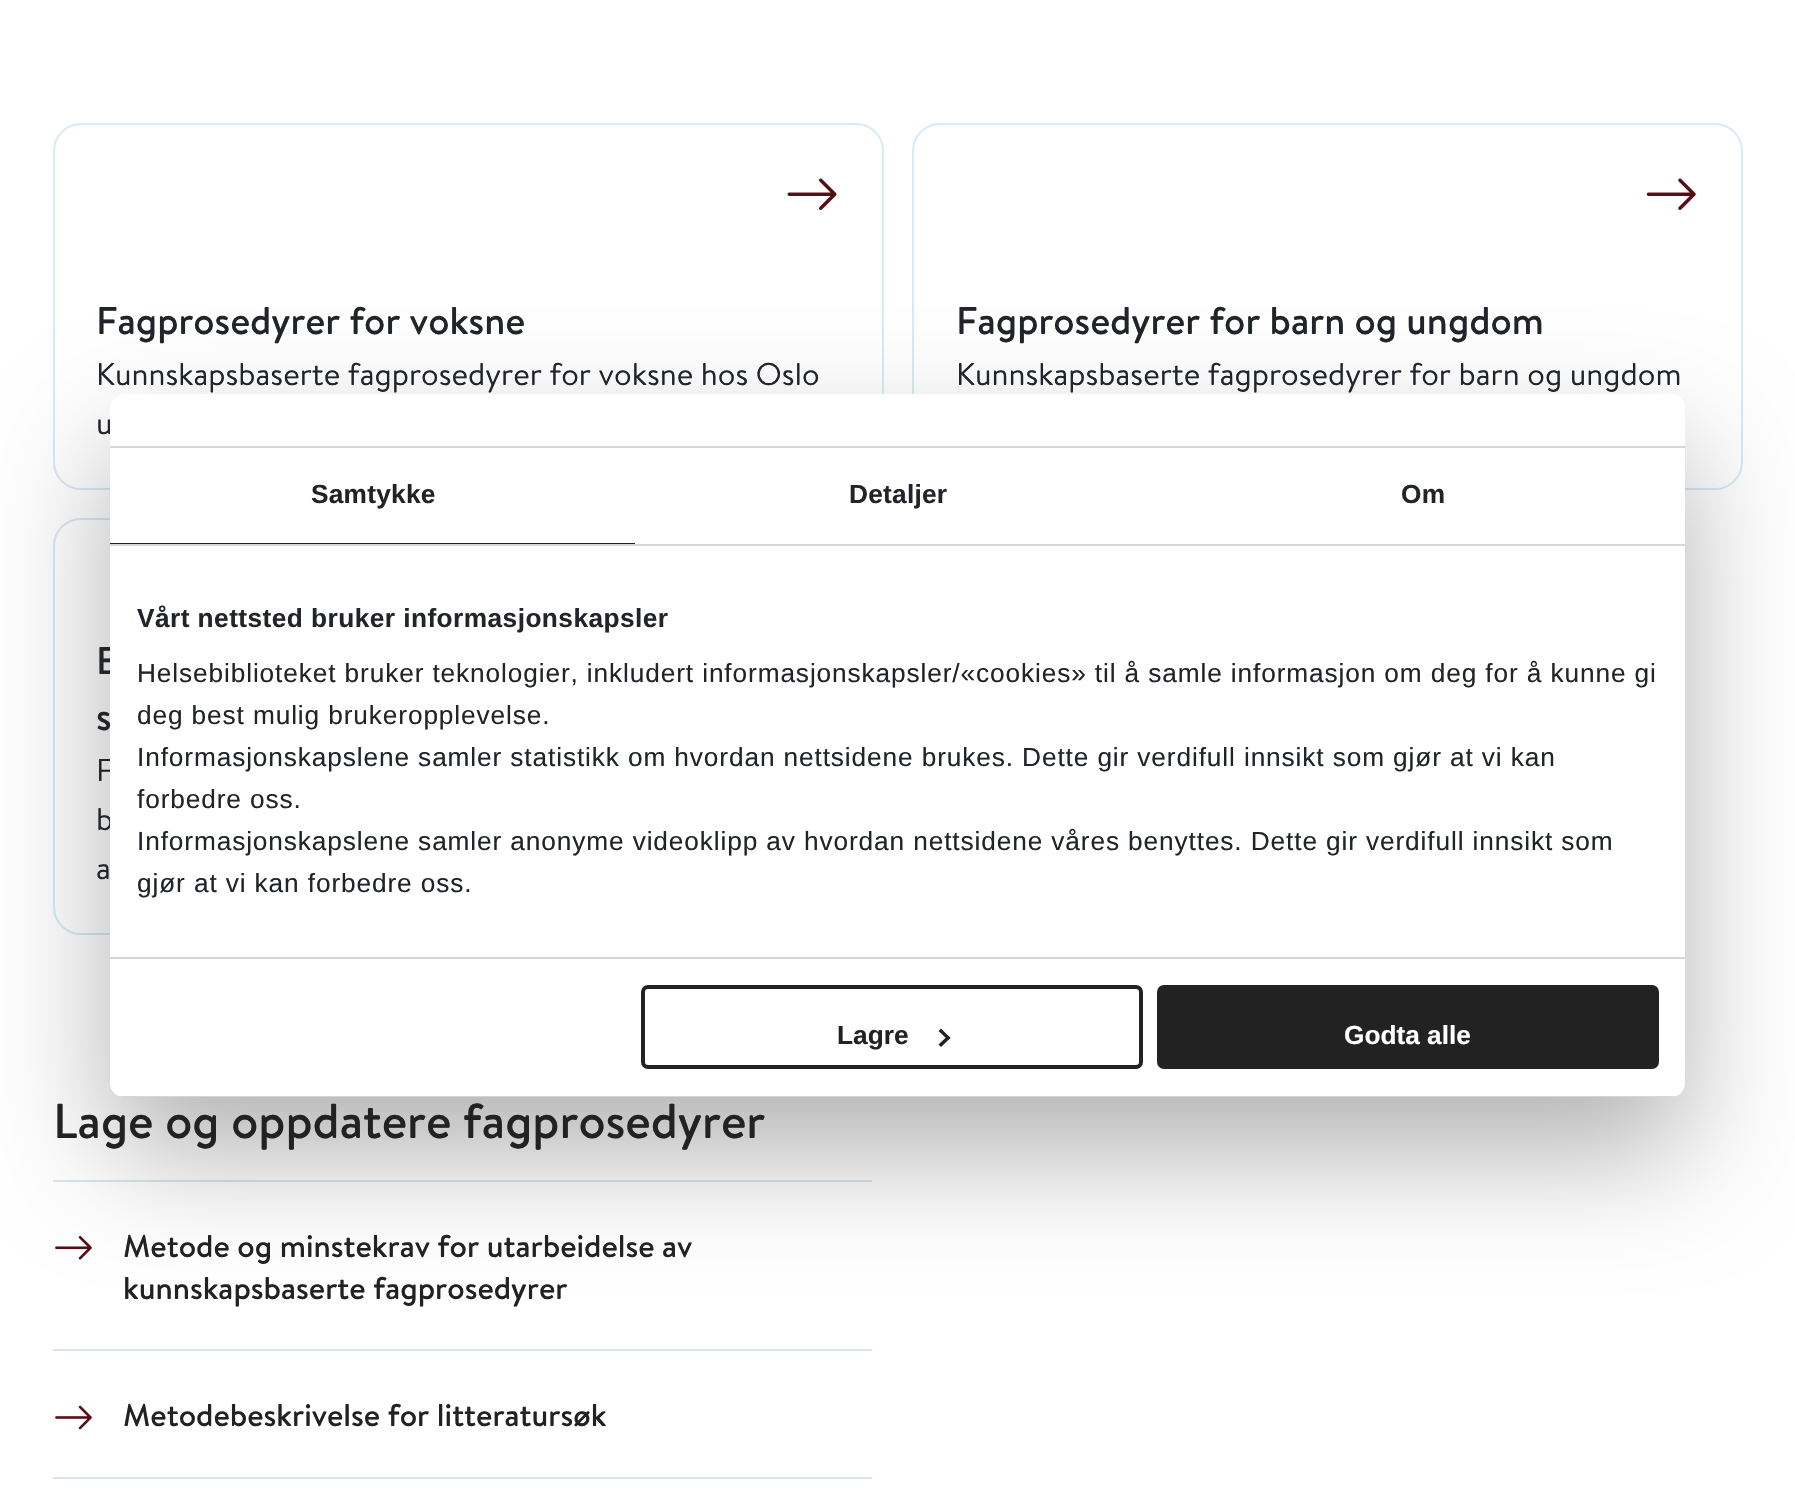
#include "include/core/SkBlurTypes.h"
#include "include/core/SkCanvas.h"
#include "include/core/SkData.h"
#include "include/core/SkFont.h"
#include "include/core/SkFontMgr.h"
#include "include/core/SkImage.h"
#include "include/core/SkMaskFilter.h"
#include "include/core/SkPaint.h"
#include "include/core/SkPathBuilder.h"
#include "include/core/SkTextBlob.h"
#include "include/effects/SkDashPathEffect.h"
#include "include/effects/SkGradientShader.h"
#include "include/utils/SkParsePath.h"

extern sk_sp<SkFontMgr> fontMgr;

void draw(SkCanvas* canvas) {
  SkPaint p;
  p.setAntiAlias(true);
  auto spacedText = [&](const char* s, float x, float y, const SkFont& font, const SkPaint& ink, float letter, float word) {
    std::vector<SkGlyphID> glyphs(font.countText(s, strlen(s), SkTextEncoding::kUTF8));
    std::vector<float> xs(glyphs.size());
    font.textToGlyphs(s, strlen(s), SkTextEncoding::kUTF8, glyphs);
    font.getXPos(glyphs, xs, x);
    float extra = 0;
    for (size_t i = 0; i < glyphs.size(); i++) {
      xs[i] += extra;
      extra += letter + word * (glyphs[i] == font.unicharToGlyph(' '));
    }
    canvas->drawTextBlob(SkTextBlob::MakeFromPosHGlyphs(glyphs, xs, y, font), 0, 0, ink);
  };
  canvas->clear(SK_ColorWHITE);
  p.setStyle(SkPaint::kStroke_Style);
  p.setStrokeWidth(2);
  p.setColor(SkColorSetRGB(213, 235, 245));
  canvas->drawRoundRect(SkRect::MakeLTRB(54, 124, 883, 489), 27, 27, p);
  canvas->drawImageRect(SkImages::DeferredFromEncodedData(SkData::MakeFromFileName("images/1.png")), SkRect::MakeLTRB(787, 178, 837, 210), SkSamplingOptions());
  canvas->drawRoundRect(SkRect::MakeLTRB(913, 124, 1742, 489), 27, 27, p);
  canvas->drawImageRect(SkImages::DeferredFromEncodedData(SkData::MakeFromFileName("images/2.png")), SkRect::MakeLTRB(1646, 178, 1696, 210), SkSamplingOptions());
  canvas->drawRoundRect(SkRect::MakeLTRB(54, 519, 883, 934), 27, 27, p);
  p.setStyle(SkPaint::kFill_Style);
  p.setColor(SkColorSetRGB(219, 230, 236));
  canvas->drawRect(SkRect::MakeLTRB(53, 1180, 872, 1182), p);
  canvas->drawRect(SkRect::MakeLTRB(53, 1349, 872, 1351), p);
  canvas->drawImageRect(SkImages::DeferredFromEncodedData(SkData::MakeFromFileName("images/3.png")), SkRect::MakeLTRB(55, 1236, 92, 1260), SkSamplingOptions());
  canvas->drawRect(SkRect::MakeLTRB(53, 1477, 872, 1479), p);
  canvas->drawImageRect(SkImages::DeferredFromEncodedData(SkData::MakeFromFileName("images/4.png")), SkRect::MakeLTRB(55, 1405, 92, 1430), SkSamplingOptions());
  p.setColor(SkColorSetARGB(77, 0, 0, 0));
  p.setMaskFilter(SkMaskFilter::MakeBlur(kNormal_SkBlurStyle, 59.5f));
  canvas->drawRoundRect(SkRect::MakeLTRB(110, 450, 1685, 1153), 14, 14, p);
  p.setMaskFilter(nullptr);
  SkFont font1(fontMgr->matchFamilyStyle("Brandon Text", SkFontStyle(500, SkFontStyle::kNormal_Width, SkFontStyle::kUpright_Slant)), 38.5f);
  font1.setSubpixel(true);
  p.setColor(SkColorSetRGB(33, 37, 41));
  canvas->drawString("Fagprosedyrer for voksne", 96, 334, font1, p);
  SkFont font2(fontMgr->matchFamilyStyle("Brandon Text", SkFontStyle::Normal()), 31.5f);
  font2.setSubpixel(true);
  canvas->drawString("Kunnskapsbaserte fagprosedyrer for voksne hos Oslo", 96, 385, font2, p);
  canvas->drawString("u", 96, 434, font2, p);
  canvas->drawString("Fagprosedyrer for barn og ungdom", 956, 334, font1, p);
  canvas->drawString("Kunnskapsbaserte fagprosedyrer for barn og ungdom", 956, 385, font2, p);
  canvas->drawString("E", 96, 674, font1, p);
  canvas->drawString("s", 96, 730, font1, p);
  canvas->drawString("F", 96, 781, font2, p);
  canvas->drawString("b", 96, 830, font2, p);
  canvas->drawString("a", 96, 879, font2, p);
  SkFont font3(fontMgr->matchFamilyStyle("Brandon Text", SkFontStyle(500, SkFontStyle::kNormal_Width, SkFontStyle::kUpright_Slant)), 49);
  font3.setSubpixel(true);
  p.setColor(SkColorSetRGB(34, 34, 34));
  canvas->drawString("Lage og oppdatere fagprosedyrer", 53, 1138, font3, p);
  SkFont font4(fontMgr->matchFamilyStyle("Brandon Text", SkFontStyle(500, SkFontStyle::kNormal_Width, SkFontStyle::kUpright_Slant)), 31.5f);
  font4.setSubpixel(true);
  canvas->drawString("Metode og minstekrav for utarbeidelse av", 123, 1257, font4, p);
  canvas->drawString("kunnskapsbaserte fagprosedyrer", 123, 1299, font4, p);
  canvas->drawString("Metodebeskrivelse for litteratursøk", 123, 1426, font4, p);
  p.setColor(SK_ColorWHITE);
  canvas->drawRoundRect(SkRect::MakeLTRB(110, 394, 1685, 1097), 14, 14, p);
  p.setColor(SkColorSetRGB(214, 214, 214));
  canvas->drawRect(SkRect::MakeLTRB(110, 446, 1685, 448), p);
  canvas->drawRect(SkRect::MakeLTRB(110, 544, 1685, 546), p);
  p.setColor(SkColorSetRGB(34, 34, 34));
  canvas->drawRect(SkRect::MakeLTRB(110, 543, 635, 544), p);
  SkFont font5(fontMgr->matchFamilyStyle("Liberation Sans", SkFontStyle::Bold()), 26.25f);
  font5.setSubpixel(true);
  spacedText("Samtykke", 311, 503, font5, p, 0.25f, 0);
  p.setColor(SkColorSetRGB(33, 37, 41));
  spacedText("Detaljer", 849, 503, font5, p, 0.25f, 0);
  spacedText("Om", 1401, 503, font5, p, 0.25f, 0);
  p.setColor(SkColorSetRGB(214, 214, 214));
  canvas->drawRect(SkRect::MakeLTRB(110, 957, 1685, 959), p);
  p.setColor(SkColorSetRGB(33, 37, 41));
  spacedText("Vårt nettsted bruker informasjonskapsler", 137, 627, font5, p, 0.45f, 0);
  SkFont font6(fontMgr->matchFamilyStyle("Liberation Sans", SkFontStyle::Normal()), 26.25f);
  font6.setSubpixel(true);
  spacedText("Helsebiblioteket bruker teknologier, inkludert informasjonskapsler/«cookies» til å samle informasjon om deg for å kunne gi", 137, 682, font6, p, 0.88f, 0);
  spacedText("deg best mulig brukeropplevelse.", 137, 724, font6, p, 0.88f, 0);
  spacedText("Informasjonskapslene samler statistikk om hvordan nettsidene brukes. Dette gir verdifull innsikt som gjør at vi kan", 137, 766, font6, p, 0.88f, 0);
  spacedText("forbedre oss.", 137, 808, font6, p, 0.88f, 0);
  spacedText("Informasjonskapslene samler anonyme videoklipp av hvordan nettsidene våres benyttes. Dette gir verdifull innsikt som", 137, 850, font6, p, 0.88f, 0);
  spacedText("gjør at vi kan forbedre oss.", 137, 892, font6, p, 0.88f, 0);
  canvas->save();
  canvas->clipPath(SkPathBuilder().moveTo(124, 394).lineTo(1671, 394).cubicTo(1678.5f, 394, 1685, 400.5f, 1685, 408).lineTo(1685, 1083).cubicTo(1685, 1090.5f, 1678.5f, 1097, 1671, 1097).lineTo(124, 1097).cubicTo(116.5f, 1097, 110, 1090.5f, 110, 1083).lineTo(110, 408).cubicTo(110, 400.5f, 116.5f, 394, 124, 394).close().detach(), true);
  p.setColor(SkColorSetRGB(214, 214, 214));
  canvas->drawRect(SkRect::MakeLTRB(119, 1096, 1676, 1097), p);
  canvas->restore();
  p.setStyle(SkPaint::kStroke_Style);
  p.setStrokeWidth(4);
  p.setColor(SkColorSetRGB(34, 34, 34));
  canvas->drawRoundRect(SkRect::MakeLTRB(643, 987, 1141, 1067), 5, 5, p);
  p.setStyle(SkPaint::kFill_Style);
  canvas->drawString("Lagre", 837, 1044, font5, p);
  canvas->drawPath(SkPathBuilder().moveTo(941, 1028.5f).lineTo(950.5f, 1038).lineTo(948, 1040).lineTo(938.5f, 1031).close().detach(), p);
  canvas->drawPath(SkPathBuilder().moveTo(948, 1035.5f).lineTo(950.5f, 1038).lineTo(941, 1047).lineTo(938.5f, 1044.5f).close().detach(), p);
  canvas->drawRoundRect(SkRect::MakeLTRB(1159, 987, 1657, 1067), 5, 5, p);
  p.setStyle(SkPaint::kStroke_Style);
  canvas->drawRoundRect(SkRect::MakeLTRB(1159, 987, 1657, 1067), 5, 5, p);
  p.setStyle(SkPaint::kFill_Style);
  p.setColor(SK_ColorWHITE);
  canvas->drawString("Godta alle", 1344, 1044, font5, p);
}
